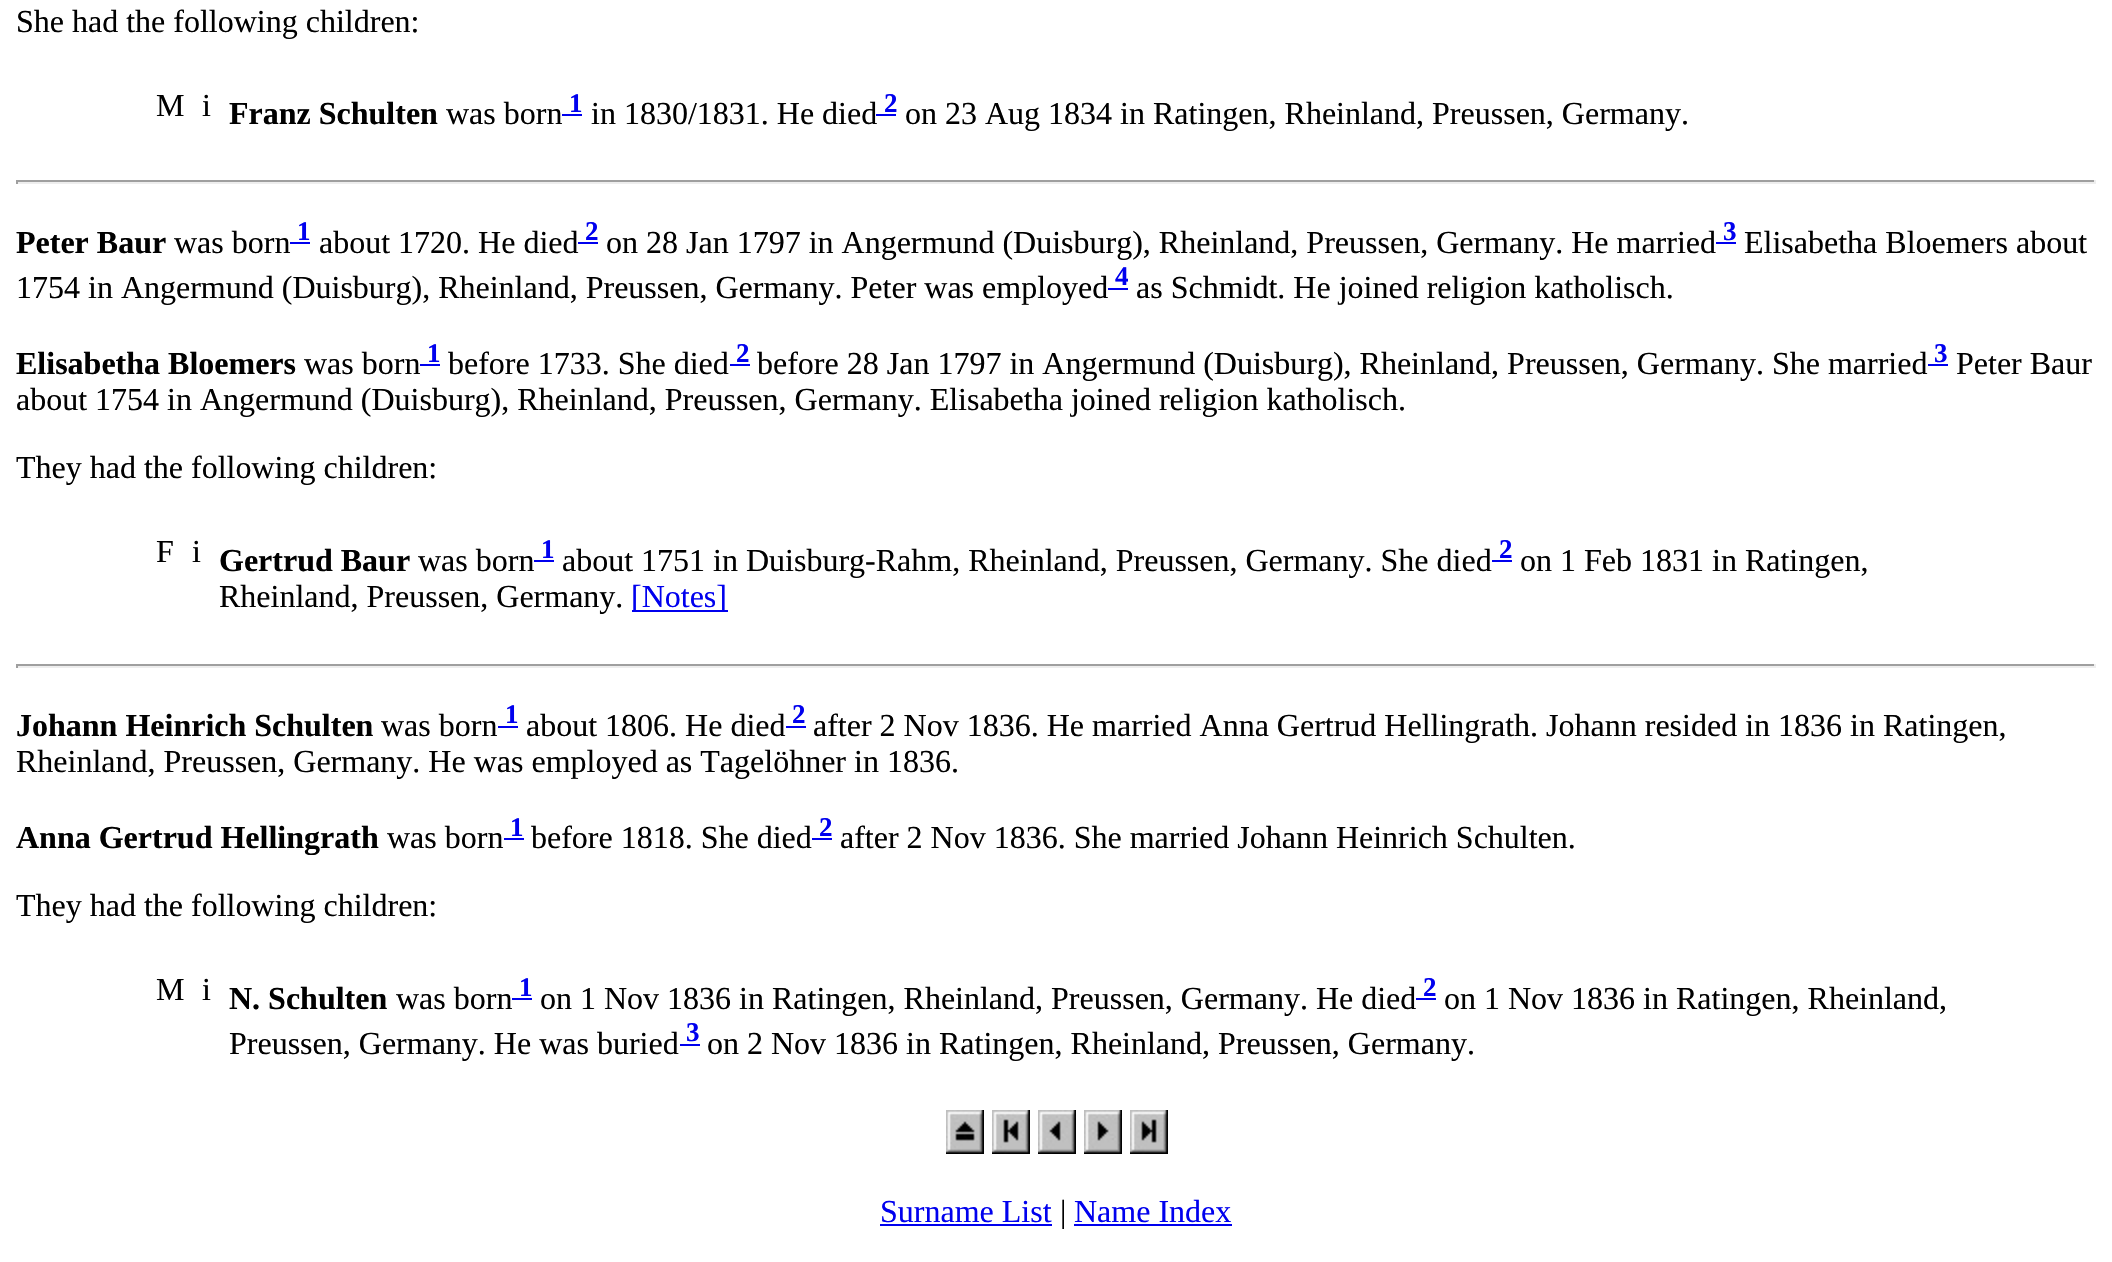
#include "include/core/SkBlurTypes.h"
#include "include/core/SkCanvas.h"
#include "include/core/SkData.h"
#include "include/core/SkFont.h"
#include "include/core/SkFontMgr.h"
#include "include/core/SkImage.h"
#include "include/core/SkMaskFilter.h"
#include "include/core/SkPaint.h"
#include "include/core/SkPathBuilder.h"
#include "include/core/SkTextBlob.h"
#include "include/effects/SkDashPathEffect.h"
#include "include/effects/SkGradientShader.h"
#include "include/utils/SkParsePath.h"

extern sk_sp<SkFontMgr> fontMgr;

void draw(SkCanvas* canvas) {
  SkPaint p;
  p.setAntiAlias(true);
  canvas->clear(SK_ColorWHITE);
  p.setColor(SkColorSetRGB(159, 159, 159));
  canvas->drawRect(SkRect::MakeLTRB(16, 180, 2096, 182), p);
  p.setColor(SkColorSetRGB(238, 238, 238));
  canvas->drawRect(SkRect::MakeLTRB(2094, 180, 2096, 184), p);
  canvas->drawRect(SkRect::MakeLTRB(16, 182, 2096, 184), p);
  p.setColor(SkColorSetRGB(159, 159, 159));
  canvas->drawRect(SkRect::MakeLTRB(16, 180, 18, 184), p);
  p.setColor(SkColorSetRGB(0, 0, 238));
  canvas->drawRect(SkRect::MakeLTRB(578, 242, 598, 244), p);
  canvas->drawRect(SkRect::MakeLTRB(1716, 242, 1736, 244), p);
  canvas->drawRect(SkRect::MakeLTRB(1108, 288, 1128, 290), p);
  canvas->drawRect(SkRect::MakeLTRB(420, 364, 440, 366), p);
  canvas->drawRect(SkRect::MakeLTRB(730, 364, 750, 366), p);
  canvas->drawRect(SkRect::MakeLTRB(1928, 364, 1948, 366), p);
  canvas->drawRect(SkRect::MakeLTRB(534, 560, 554, 562), p);
  canvas->drawRect(SkRect::MakeLTRB(1492, 560, 1512, 562), p);
  canvas->drawRect(SkRect::MakeLTRB(632, 610, 728, 612), p);
  p.setColor(SkColorSetRGB(159, 159, 159));
  canvas->drawRect(SkRect::MakeLTRB(16, 664, 2096, 666), p);
  p.setColor(SkColorSetRGB(238, 238, 238));
  canvas->drawRect(SkRect::MakeLTRB(2094, 664, 2096, 668), p);
  canvas->drawRect(SkRect::MakeLTRB(16, 666, 2096, 668), p);
  p.setColor(SkColorSetRGB(159, 159, 159));
  canvas->drawRect(SkRect::MakeLTRB(16, 664, 18, 668), p);
  p.setColor(SkColorSetRGB(0, 0, 238));
  canvas->drawRect(SkRect::MakeLTRB(498, 726, 518, 728), p);
  canvas->drawRect(SkRect::MakeLTRB(786, 726, 806, 728), p);
  canvas->drawRect(SkRect::MakeLTRB(504, 838, 524, 840), p);
  canvas->drawRect(SkRect::MakeLTRB(812, 838, 832, 840), p);
  canvas->drawRect(SkRect::MakeLTRB(512, 998, 532, 1000), p);
  canvas->drawRect(SkRect::MakeLTRB(1416, 998, 1436, 1000), p);
  canvas->drawRect(SkRect::MakeLTRB(680, 1044, 700, 1046), p);
  canvas->drawImageRect(SkImages::DeferredFromEncodedData(SkData::MakeFromFileName("images/1.png")), SkRect::MakeLTRB(946, 1110, 984, 1154), SkSamplingOptions());
  canvas->drawImageRect(SkImages::DeferredFromEncodedData(SkData::MakeFromFileName("images/2.png")), SkRect::MakeLTRB(992, 1110, 1030, 1154), SkSamplingOptions());
  canvas->drawImageRect(SkImages::DeferredFromEncodedData(SkData::MakeFromFileName("images/3.png")), SkRect::MakeLTRB(1038, 1110, 1076, 1154), SkSamplingOptions());
  canvas->drawImageRect(SkImages::DeferredFromEncodedData(SkData::MakeFromFileName("images/4.png")), SkRect::MakeLTRB(1084, 1110, 1122, 1154), SkSamplingOptions());
  canvas->drawImageRect(SkImages::DeferredFromEncodedData(SkData::MakeFromFileName("images/5.png")), SkRect::MakeLTRB(1130, 1110, 1168, 1154), SkSamplingOptions());
  canvas->drawRect(SkRect::MakeLTRB(880, 1224, 1052, 1226), p);
  canvas->drawRect(SkRect::MakeLTRB(1074, 1224, 1232, 1226), p);
  SkFont font1(fontMgr->matchFamilyStyle("Liberation Serif", SkFontStyle::Normal()), 32);
  font1.setSubpixel(true);
  p.setColor(SK_ColorBLACK);
  canvas->drawString("She had the following children:", 16, 32, font1, p);
  canvas->drawString("M", 156, 116, font1, p);
  canvas->drawString("i", 202, 116, font1, p);
  SkFont font2(fontMgr->matchFamilyStyle("Liberation Serif", SkFontStyle::Bold()), 32);
  font2.setSubpixel(true);
  canvas->drawString("Franz Schulten", 229, 124, font2, p);
  canvas->drawString("was born", 446, 124, font1, p);
  SkFont font3(fontMgr->matchFamilyStyle("Liberation Serif", SkFontStyle::Bold()), 27);
  font3.setSubpixel(true);
  p.setColor(SkColorSetRGB(0, 0, 238));
  canvas->drawString("1", 569, 112, font3, p);
  canvas->drawRect(SkRect::MakeLTRB(562, 114, 582, 116), p);
  p.setColor(SK_ColorBLACK);
  canvas->drawString("in 1830/1831. He died", 591, 124, font1, p);
  p.setColor(SkColorSetRGB(0, 0, 238));
  canvas->drawString("2", 884, 112, font3, p);
  canvas->drawRect(SkRect::MakeLTRB(876, 114, 896, 116), p);
  p.setColor(SK_ColorBLACK);
  canvas->drawString("on 23 Aug 1834 in Ratingen, Rheinland, Preussen, Germany.", 905, 124, font1, p);
  canvas->drawString("Peter Baur", 16, 253, font2, p);
  canvas->drawString("was born", 174, 253, font1, p);
  p.setColor(SkColorSetRGB(0, 0, 238));
  canvas->drawString("1", 297, 240, font3, p);
  canvas->drawRect(SkRect::MakeLTRB(290, 242, 310, 244), p);
  p.setColor(SK_ColorBLACK);
  canvas->drawString("about 1720. He died", 319, 253, font1, p);
  p.setColor(SkColorSetRGB(0, 0, 238));
  canvas->drawString("2", 585, 240, font3, p);
  p.setColor(SK_ColorBLACK);
  canvas->drawString("on 28 Jan 1797 in Angermund (Duisburg), Rheinland, Preussen, Germany. He married", 606, 253, font1, p);
  p.setColor(SkColorSetRGB(0, 0, 238));
  canvas->drawString("3", 1723, 240, font3, p);
  p.setColor(SK_ColorBLACK);
  canvas->drawString("Elisabetha Bloemers about", 1744, 253, font1, p);
  canvas->drawString("1754 in Angermund (Duisburg), Rheinland, Preussen, Germany. Peter was employed", 16, 298, font1, p);
  p.setColor(SkColorSetRGB(0, 0, 238));
  canvas->drawString("4", 1115, 285, font3, p);
  p.setColor(SK_ColorBLACK);
  canvas->drawString("as Schmidt. He joined religion katholisch.", 1136, 298, font1, p);
  canvas->drawString("Elisabetha Bloemers", 16, 374, font2, p);
  canvas->drawString("was born", 304, 374, font1, p);
  p.setColor(SkColorSetRGB(0, 0, 238));
  canvas->drawString("1", 427, 362, font3, p);
  p.setColor(SK_ColorBLACK);
  canvas->drawString("before 1733. She died", 448, 374, font1, p);
  p.setColor(SkColorSetRGB(0, 0, 238));
  canvas->drawString("2", 736, 362, font3, p);
  p.setColor(SK_ColorBLACK);
  canvas->drawString("before 28 Jan 1797 in Angermund (Duisburg), Rheinland, Preussen, Germany. She married", 757, 374, font1, p);
  p.setColor(SkColorSetRGB(0, 0, 238));
  canvas->drawString("3", 1934, 362, font3, p);
  p.setColor(SK_ColorBLACK);
  canvas->drawString("Peter Baur", 1956, 374, font1, p);
  canvas->drawString("about 1754 in Angermund (Duisburg), Rheinland, Preussen, Germany. Elisabetha joined religion katholisch.", 16, 410, font1, p);
  canvas->drawString("They had the following children:", 16, 478, font1, p);
  canvas->drawString("F", 156, 562, font1, p);
  canvas->drawString("i", 192, 562, font1, p);
  canvas->drawString("Gertrud Baur", 219, 571, font2, p);
  canvas->drawString("was born", 418, 571, font1, p);
  p.setColor(SkColorSetRGB(0, 0, 238));
  canvas->drawString("1", 541, 558, font3, p);
  p.setColor(SK_ColorBLACK);
  canvas->drawString("about 1751 in Duisburg-Rahm, Rheinland, Preussen, Germany. She died", 562, 571, font1, p);
  p.setColor(SkColorSetRGB(0, 0, 238));
  canvas->drawString("2", 1499, 558, font3, p);
  p.setColor(SK_ColorBLACK);
  canvas->drawString("on 1 Feb 1831 in Ratingen,", 1520, 571, font1, p);
  canvas->drawString("Rheinland, Preussen, Germany.", 219, 607, font1, p);
  p.setColor(SkColorSetRGB(0, 0, 238));
  canvas->drawString("[Notes]", 631, 607, font1, p);
  p.setColor(SK_ColorBLACK);
  canvas->drawString("Johann Heinrich Schulten", 16, 736, font2, p);
  canvas->drawString("was born", 381, 736, font1, p);
  p.setColor(SkColorSetRGB(0, 0, 238));
  canvas->drawString("1", 505, 723, font3, p);
  p.setColor(SK_ColorBLACK);
  canvas->drawString("about 1806. He died", 526, 736, font1, p);
  p.setColor(SkColorSetRGB(0, 0, 238));
  canvas->drawString("2", 792, 723, font3, p);
  p.setColor(SK_ColorBLACK);
  canvas->drawString("after 2 Nov 1836. He married Anna Gertrud Hellingrath. Johann resided in 1836 in Ratingen,", 813, 736, font1, p);
  canvas->drawString("Rheinland, Preussen, Germany. He was employed as Tagelöhner in 1836.", 16, 772, font1, p);
  canvas->drawString("Anna Gertrud Hellingrath", 16, 848, font2, p);
  canvas->drawString("was born", 387, 848, font1, p);
  p.setColor(SkColorSetRGB(0, 0, 238));
  canvas->drawString("1", 510, 836, font3, p);
  p.setColor(SK_ColorBLACK);
  canvas->drawString("before 1818. She died", 531, 848, font1, p);
  p.setColor(SkColorSetRGB(0, 0, 238));
  canvas->drawString("2", 819, 836, font3, p);
  p.setColor(SK_ColorBLACK);
  canvas->drawString("after 2 Nov 1836. She married Johann Heinrich Schulten.", 840, 848, font1, p);
  canvas->drawString("They had the following children:", 16, 916, font1, p);
  canvas->drawString("M", 156, 1000, font1, p);
  canvas->drawString("i", 202, 1000, font1, p);
  canvas->drawString("N. Schulten", 229, 1009, font2, p);
  canvas->drawString("was born", 396, 1009, font1, p);
  p.setColor(SkColorSetRGB(0, 0, 238));
  canvas->drawString("1", 519, 996, font3, p);
  p.setColor(SK_ColorBLACK);
  canvas->drawString("on 1 Nov 1836 in Ratingen, Rheinland, Preussen, Germany. He died", 540, 1009, font1, p);
  p.setColor(SkColorSetRGB(0, 0, 238));
  canvas->drawString("2", 1423, 996, font3, p);
  p.setColor(SK_ColorBLACK);
  canvas->drawString("on 1 Nov 1836 in Ratingen, Rheinland,", 1444, 1009, font1, p);
  canvas->drawString("Preussen, Germany. He was buried", 229, 1054, font1, p);
  p.setColor(SkColorSetRGB(0, 0, 238));
  canvas->drawString("3", 686, 1041, font3, p);
  p.setColor(SK_ColorBLACK);
  canvas->drawString("on 2 Nov 1836 in Ratingen, Rheinland, Preussen, Germany.", 707, 1054, font1, p);
  p.setColor(SkColorSetRGB(0, 0, 238));
  canvas->drawString("Surname List", 880, 1222, font1, p);
  p.setColor(SK_ColorBLACK);
  canvas->drawString("|", 1060, 1222, font1, p);
  p.setColor(SkColorSetRGB(0, 0, 238));
  canvas->drawString("Name Index", 1074, 1222, font1, p);
}
